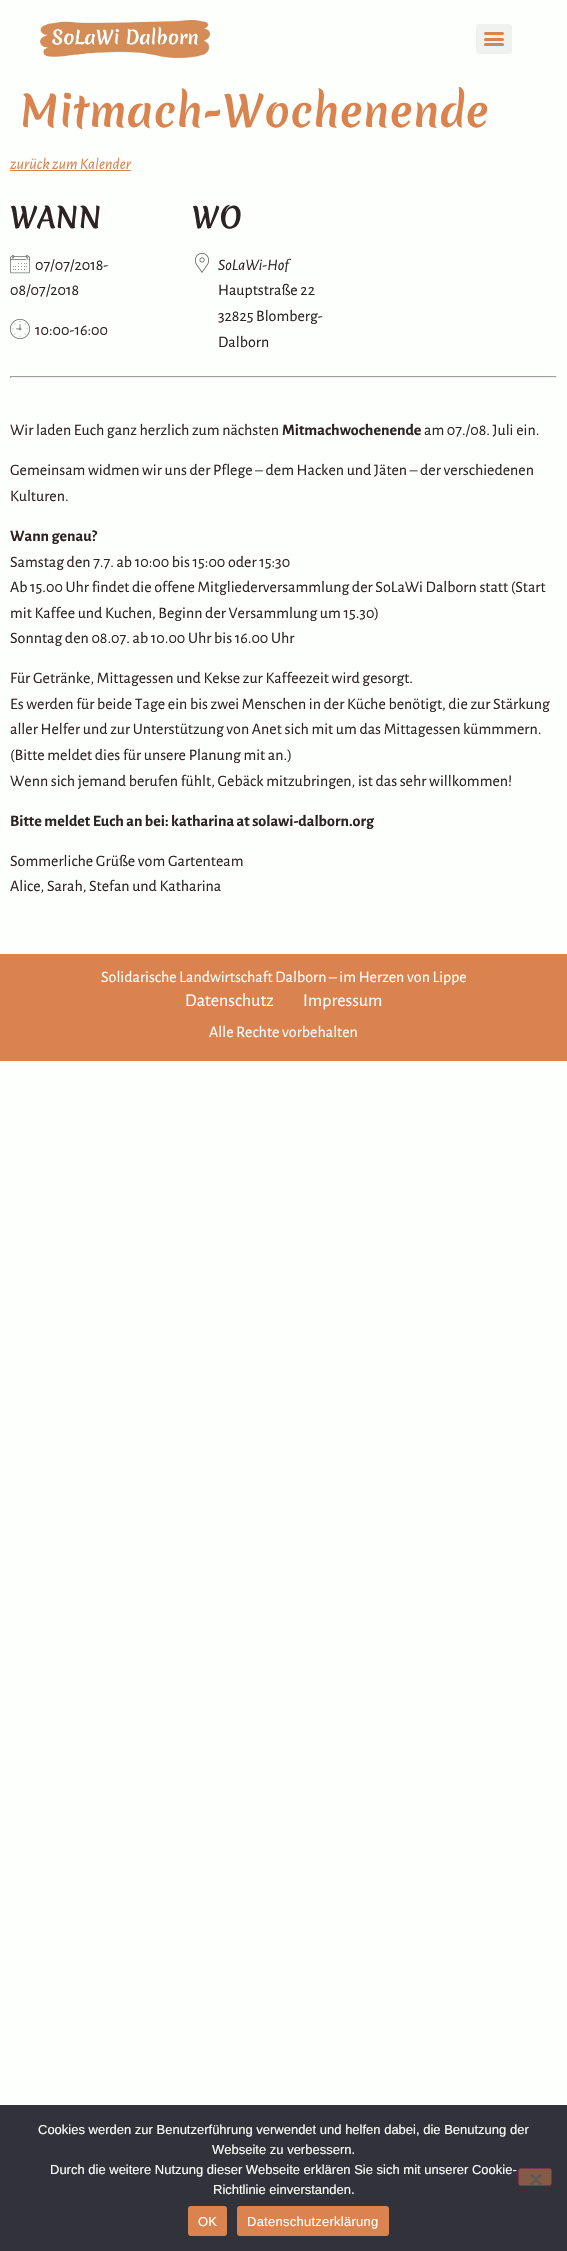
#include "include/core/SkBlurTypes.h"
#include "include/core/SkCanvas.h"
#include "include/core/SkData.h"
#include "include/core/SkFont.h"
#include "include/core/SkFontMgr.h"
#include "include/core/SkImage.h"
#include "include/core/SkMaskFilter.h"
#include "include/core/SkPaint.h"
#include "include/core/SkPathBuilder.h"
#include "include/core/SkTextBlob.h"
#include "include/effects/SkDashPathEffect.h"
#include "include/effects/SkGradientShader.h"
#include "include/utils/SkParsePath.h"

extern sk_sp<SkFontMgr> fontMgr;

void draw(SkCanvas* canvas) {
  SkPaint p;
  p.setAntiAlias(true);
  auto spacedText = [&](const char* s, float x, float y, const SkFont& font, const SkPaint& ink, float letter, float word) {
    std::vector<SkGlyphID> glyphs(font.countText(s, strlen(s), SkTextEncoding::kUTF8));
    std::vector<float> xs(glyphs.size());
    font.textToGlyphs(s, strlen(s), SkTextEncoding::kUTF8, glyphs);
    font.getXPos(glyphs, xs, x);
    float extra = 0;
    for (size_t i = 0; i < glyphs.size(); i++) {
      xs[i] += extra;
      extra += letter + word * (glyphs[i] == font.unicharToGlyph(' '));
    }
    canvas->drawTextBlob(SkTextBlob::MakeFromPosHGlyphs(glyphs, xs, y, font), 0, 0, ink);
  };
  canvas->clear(SkColorSetRGB(253, 255, 252));
  canvas->drawImageRect(SkImages::DeferredFromEncodedData(SkData::MakeFromFileName("images/1.png")), SkRect::MakeLTRB(40, 20, 210, 58), SkSamplingOptions());
  p.setColor(SkColorSetRGB(240, 242, 239));
  canvas->drawRoundRect(SkRect::MakeLTRB(476, 24, 512, 54), 3, 3, p);
  p.setColor(SkColorSetRGB(218, 131, 79));
  canvas->drawRoundRect(SkRect::MakeLTRB(484, 38, 504, 41), 1.5f, 1.5f, p);
  canvas->drawRoundRect(SkRect::MakeLTRB(484, 32, 504, 35), 1.5f, 1.5f, p);
  canvas->drawRoundRect(SkRect::MakeLTRB(484, 43, 504, 46), 1.5f, 1.5f, p);
  canvas->drawRect(SkRect::MakeLTRB(10, 170, 131, 171), p);
  canvas->drawImageRect(SkImages::DeferredFromEncodedData(SkData::MakeFromFileName("images/2.png")), SkRect::MakeLTRB(10, 254, 30, 274), SkSamplingOptions());
  canvas->drawImageRect(SkImages::DeferredFromEncodedData(SkData::MakeFromFileName("images/3.png")), SkRect::MakeLTRB(10, 319, 30, 339), SkSamplingOptions());
  canvas->drawImageRect(SkImages::DeferredFromEncodedData(SkData::MakeFromFileName("images/4.png")), SkRect::MakeLTRB(195, 253, 209, 273), SkSamplingOptions());
  p.setColor(SkColorSetRGB(159, 159, 159));
  canvas->drawRect(SkRect::MakeLTRB(10, 376, 557, 377), p);
  p.setColor(SkColorSetRGB(238, 238, 238));
  canvas->drawRect(SkRect::MakeLTRB(556, 376, 557, 378), p);
  canvas->drawRect(SkRect::MakeLTRB(10, 377, 557, 378), p);
  p.setColor(SkColorSetRGB(159, 159, 159));
  canvas->drawRect(SkRect::MakeLTRB(10, 376, 11, 378), p);
  p.setColor(SkColorSetRGB(218, 131, 79));
  canvas->drawRect(SkRect::MakeLTRB(0, 954, 567, 1061), p);
  p.setColor(SkColorSetRGB(50, 50, 58));
  canvas->drawRect(SkRect::MakeLTRB(0, 2105, 567, 2251), p);
  p.setColor(SkColorSetRGB(134, 91, 69));
  canvas->drawRoundRect(SkRect::MakeLTRB(518.5f, 2168.5f, 551.5f, 2185.5f), 2.5f, 2.5f, p);
  p.setStyle(SkPaint::kStroke_Style);
  p.setStrokeWidth(1);
  p.setColor(SkColorSetRGB(127, 51, 80));
  canvas->drawRoundRect(SkRect::MakeLTRB(518.5f, 2168.5f, 551.5f, 2185.5f), 2.5f, 2.5f, p);
  p.setStyle(SkPaint::kFill_Style);
  p.setColor(SkColorSetRGB(89, 89, 93));
  canvas->drawPath(SkPathBuilder().moveTo(540.5f, 2173.5f).lineTo(542, 2175).lineTo(531.5f, 2185.5f).lineTo(530, 2184).close().detach(), p);
  canvas->drawPath(SkPathBuilder().moveTo(530, 2175).lineTo(531.5f, 2173.5f).lineTo(542, 2184).lineTo(540.5f, 2185.5f).close().detach(), p);
  p.setColor(SkColorSetRGB(218, 131, 79));
  canvas->drawRoundRect(SkRect::MakeLTRB(188, 2206, 227, 2236), 3, 3, p);
  canvas->drawRoundRect(SkRect::MakeLTRB(237, 2206, 389, 2236), 3, 3, p);
  SkFont font1(fontMgr->matchFamilyStyle("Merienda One", SkFontStyle::Normal()), 42);
  font1.setSubpixel(true);
  spacedText("Mitmach-Wochenende", 20, 127, font1, p, 0.1f, 0);
  SkFont font2(fontMgr->matchFamilyStyle("Alegreya Sans", SkFontStyle::Italic()), 16);
  font2.setSubpixel(true);
  canvas->drawString("zurück zum Kalender", 10, 169, font2, p);
  SkFont font3(fontMgr->matchFamilyStyle("Merienda One", SkFontStyle::Normal()), 28);
  font3.setSubpixel(true);
  p.setColor(SkColorSetRGB(46, 35, 35));
  canvas->drawString("WANN", 10, 228, font3, p);
  SkFont font4(fontMgr->matchFamilyStyle("Alegreya Sans", SkFontStyle::Normal()), 16);
  font4.setSubpixel(true);
  canvas->drawString("07/07/2018-", 35, 270, font4, p);
  canvas->drawString("08/07/2018", 10, 295, font4, p);
  canvas->drawString("10:00-16:00", 35, 335, font4, p);
  canvas->drawString("WO", 192, 228, font3, p);
  canvas->drawString("SoLaWi-Hof", 218, 270, font2, p);
  canvas->drawString("Hauptstraße 22", 218, 295, font4, p);
  canvas->drawString("32825 Blomberg-", 218, 321, font4, p);
  canvas->drawString("Dalborn", 218, 347, font4, p);
  canvas->drawString("Wir laden Euch ganz herzlich zum nächsten", 10, 435, font4, p);
  SkFont font5(fontMgr->matchFamilyStyle("Alegreya Sans", SkFontStyle::Bold()), 16);
  font5.setSubpixel(true);
  canvas->drawString("Mitmachwochenende", 282, 435, font5, p);
  canvas->drawString("am 07./08. Juli ein.", 424, 435, font4, p);
  canvas->drawString("Gemeinsam widmen wir uns der Pflege – dem Hacken und Jäten – der verschiedenen", 10, 475, font4, p);
  canvas->drawString("Kulturen.", 10, 501, font4, p);
  canvas->drawString("Wann genau?", 10, 541, font5, p);
  canvas->drawString("Samstag den 7.7. ab 10:00 bis 15:00 oder 15:30", 10, 567, font4, p);
  canvas->drawString("Ab 15.00 Uhr findet die offene Mitgliederversammlung der SoLaWi Dalborn statt (Start", 10, 592, font4, p);
  canvas->drawString("mit Kaffee und Kuchen, Beginn der Versammlung um 15.30)", 10, 618, font4, p);
  canvas->drawString("Sonntag den 08.07. ab 10.00 Uhr bis 16.00 Uhr", 10, 643, font4, p);
  canvas->drawString("Für Getränke, Mittagessen und Kekse zur Kaffeezeit wird gesorgt.", 10, 683, font4, p);
  canvas->drawString("Es werden für beide Tage ein bis zwei Menschen in der Küche benötigt, die zur Stärkung", 10, 709, font4, p);
  canvas->drawString("aller Helfer und zur Unterstützung von Anet sich mit um das Mittagessen kümmmern.", 10, 734, font4, p);
  canvas->drawString("(Bitte meldet dies für unsere Planung mit an.)", 10, 760, font4, p);
  canvas->drawString("Wenn sich jemand berufen fühlt, Gebäck mitzubringen, ist das sehr willkommen!", 10, 786, font4, p);
  canvas->drawString("Bitte meldet Euch an bei: katharina at solawi-dalborn.org", 10, 826, font5, p);
  canvas->drawString("Sommerliche Grüße vom Gartenteam", 10, 866, font4, p);
  canvas->drawString("Alice, Sarah, Stefan und Katharina", 10, 891, font4, p);
  p.setColor(SkColorSetRGB(253, 255, 252));
  canvas->drawString("Solidarische Landwirtschaft Dalborn – im Herzen von Lippe", 101, 982, font4, p);
  SkFont font6(fontMgr->matchFamilyStyle("Alegreya Sans", SkFontStyle::Normal()), 18);
  font6.setSubpixel(true);
  canvas->drawString("Datenschutz", 185, 1006, font6, p);
  canvas->drawString("Impressum", 303, 1006, font6, p);
  canvas->drawString("Alle Rechte vorbehalten", 209, 1037, font4, p);
  SkFont font7(fontMgr->matchFamilyStyle("Liberation Sans", SkFontStyle::Normal()), 13);
  font7.setSubpixel(true);
  canvas->drawString("Cookies werden zur Benutzerführung verwendet und helfen dabei, die Benutzung der", 38, 2134, font7, p);
  canvas->drawString("Webseite zu verbessern.", 212, 2154, font7, p);
  canvas->drawString("Durch die weitere Nutzung dieser Webseite erklären Sie sich mit unserer Cookie-", 50, 2174, font7, p);
  canvas->drawString("Richtlinie einverstanden.", 213, 2194, font7, p);
  spacedText("OK", 198, 2226, font7, p, 0.25f, 0);
  spacedText("Datenschutzerklärung", 247, 2226, font7, p, 0.25f, 0);
}
